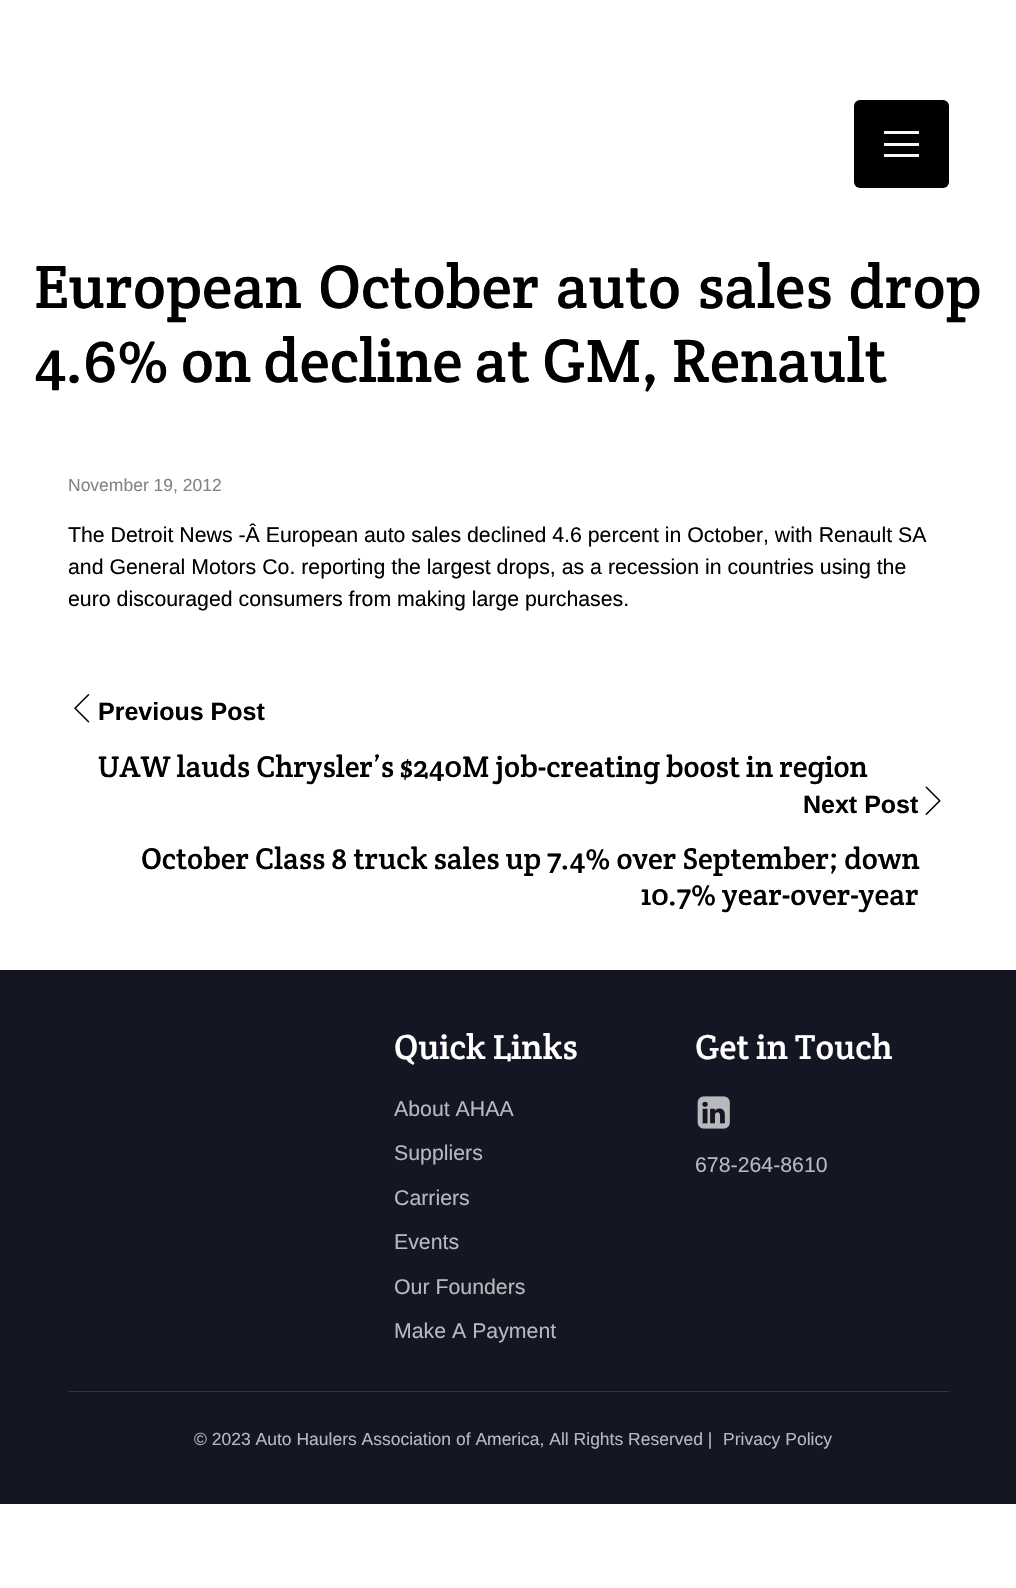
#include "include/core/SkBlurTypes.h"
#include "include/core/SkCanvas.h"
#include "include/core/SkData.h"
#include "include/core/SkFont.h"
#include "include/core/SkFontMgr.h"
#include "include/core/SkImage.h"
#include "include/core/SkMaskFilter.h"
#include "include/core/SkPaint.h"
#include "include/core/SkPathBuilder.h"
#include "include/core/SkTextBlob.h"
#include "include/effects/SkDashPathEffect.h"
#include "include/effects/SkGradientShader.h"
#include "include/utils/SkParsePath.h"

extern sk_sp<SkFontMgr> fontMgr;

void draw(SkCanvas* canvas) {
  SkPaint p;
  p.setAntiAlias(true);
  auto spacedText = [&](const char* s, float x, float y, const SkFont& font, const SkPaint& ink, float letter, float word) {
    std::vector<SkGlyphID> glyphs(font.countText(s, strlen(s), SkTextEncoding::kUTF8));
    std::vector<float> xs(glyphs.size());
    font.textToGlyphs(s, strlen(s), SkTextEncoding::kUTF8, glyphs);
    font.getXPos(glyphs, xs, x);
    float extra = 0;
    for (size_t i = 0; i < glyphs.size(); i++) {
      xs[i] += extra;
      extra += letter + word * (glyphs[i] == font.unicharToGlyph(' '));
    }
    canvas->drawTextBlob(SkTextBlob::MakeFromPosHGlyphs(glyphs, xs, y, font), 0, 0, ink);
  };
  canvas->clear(SK_ColorWHITE);
  p.setColor(SK_ColorBLACK);
  canvas->drawRoundRect(SkRect::MakeLTRB(854, 100, 949, 188), 6, 6, p);
  p.setColor(SkColorSetRGB(248, 248, 248));
  canvas->drawRect(SkRect::MakeLTRB(884, 143, 919, 146), p);
  canvas->drawRect(SkRect::MakeLTRB(884, 131, 919, 134), p);
  canvas->drawRect(SkRect::MakeLTRB(884, 154, 919, 157), p);
  canvas->drawImageRect(SkImages::DeferredFromEncodedData(SkData::MakeFromFileName("images/1.png")), SkRect::MakeLTRB(74, 694, 90, 723), SkSamplingOptions());
  canvas->drawImageRect(SkImages::DeferredFromEncodedData(SkData::MakeFromFileName("images/2.png")), SkRect::MakeLTRB(925, 786, 941, 815), SkSamplingOptions());
  p.setColor(SkColorSetRGB(20, 22, 35));
  canvas->drawRect(SkRect::MakeLTRB(0, 970, 1016, 1504), p);
  canvas->drawImageRect(SkImages::DeferredFromEncodedData(SkData::MakeFromFileName("images/3.png")), SkRect::MakeLTRB(697, 1096, 730, 1129), SkSamplingOptions());
  p.setColor(SkColorSetRGB(50, 52, 63));
  canvas->drawRect(SkRect::MakeLTRB(68, 1391, 949, 1392), p);
  SkFont font1(fontMgr->matchFamilyStyle("Crete Round", SkFontStyle::Normal()), 61.75f);
  font1.setSubpixel(true);
  p.setColor(SK_ColorBLACK);
  spacedText("European October auto sales drop", 34, 308, font1, p, 0, 4);
  canvas->drawString("4.6% on decline at GM, Renault", 34, 382, font1, p);
  SkFont font2(fontMgr->matchFamilyStyle("Liberation Sans", SkFontStyle::Normal()), 17.5f);
  font2.setSubpixel(true);
  p.setColor(SkColorSetRGB(129, 132, 132));
  canvas->drawString("November 19, 2012", 68, 491, font2, p);
  SkFont font3(fontMgr->matchFamilyStyle("Liberation Sans", SkFontStyle::Normal()), 21.3f);
  font3.setSubpixel(true);
  p.setColor(SK_ColorBLACK);
  canvas->drawString("The Detroit News -Â European auto sales declined 4.6 percent in October, with Renault SA", 68, 542, font3, p);
  canvas->drawString("and General Motors Co. reporting the largest drops, as a recession in countries using the", 68, 574, font3, p);
  canvas->drawString("euro discouraged consumers from making large purchases.", 68, 606, font3, p);
  SkFont font4(fontMgr->matchFamilyStyle("Liberation Sans", SkFontStyle::Bold()), 25);
  font4.setSubpixel(true);
  canvas->drawString("Previous Post", 98, 720, font4, p);
  SkFont font5(fontMgr->matchFamilyStyle("Crete Round", SkFontStyle::Normal()), 30.15f);
  font5.setSubpixel(true);
  canvas->drawString("UAW lauds Chrysler’s $240M job-creating boost in region", 98, 777, font5, p);
  canvas->drawString("Next Post", 803, 813, font4, p);
  canvas->drawString("October Class 8 truck sales up 7.4% over September; down", 141, 869, font5, p);
  canvas->drawString("10.7% year-over-year", 641, 905, font5, p);
  SkFont font6(fontMgr->matchFamilyStyle("Crete Round", SkFontStyle::Normal()), 35);
  font6.setSubpixel(true);
  p.setColor(SK_ColorWHITE);
  canvas->drawString("Quick Links", 394, 1059, font6, p);
  p.setColor(SkColorSetRGB(185, 185, 189));
  canvas->drawString("About AHAA", 394, 1116, font3, p);
  canvas->drawString("Suppliers", 394, 1160, font3, p);
  canvas->drawString("Carriers", 394, 1205, font3, p);
  canvas->drawString("Events", 394, 1249, font3, p);
  canvas->drawString("Our Founders", 394, 1294, font3, p);
  canvas->drawString("Make A Payment", 394, 1338, font3, p);
  p.setColor(SK_ColorWHITE);
  canvas->drawString("Get in Touch", 695, 1059, font6, p);
  p.setColor(SkColorSetRGB(185, 185, 189));
  canvas->drawString("678-264-8610", 695, 1172, font3, p);
  canvas->drawString("© 2023 Auto Haulers Association of America, All Rights Reserved |", 194, 1445, font2, p);
  canvas->drawString("Privacy Policy", 723, 1445, font2, p);
}
